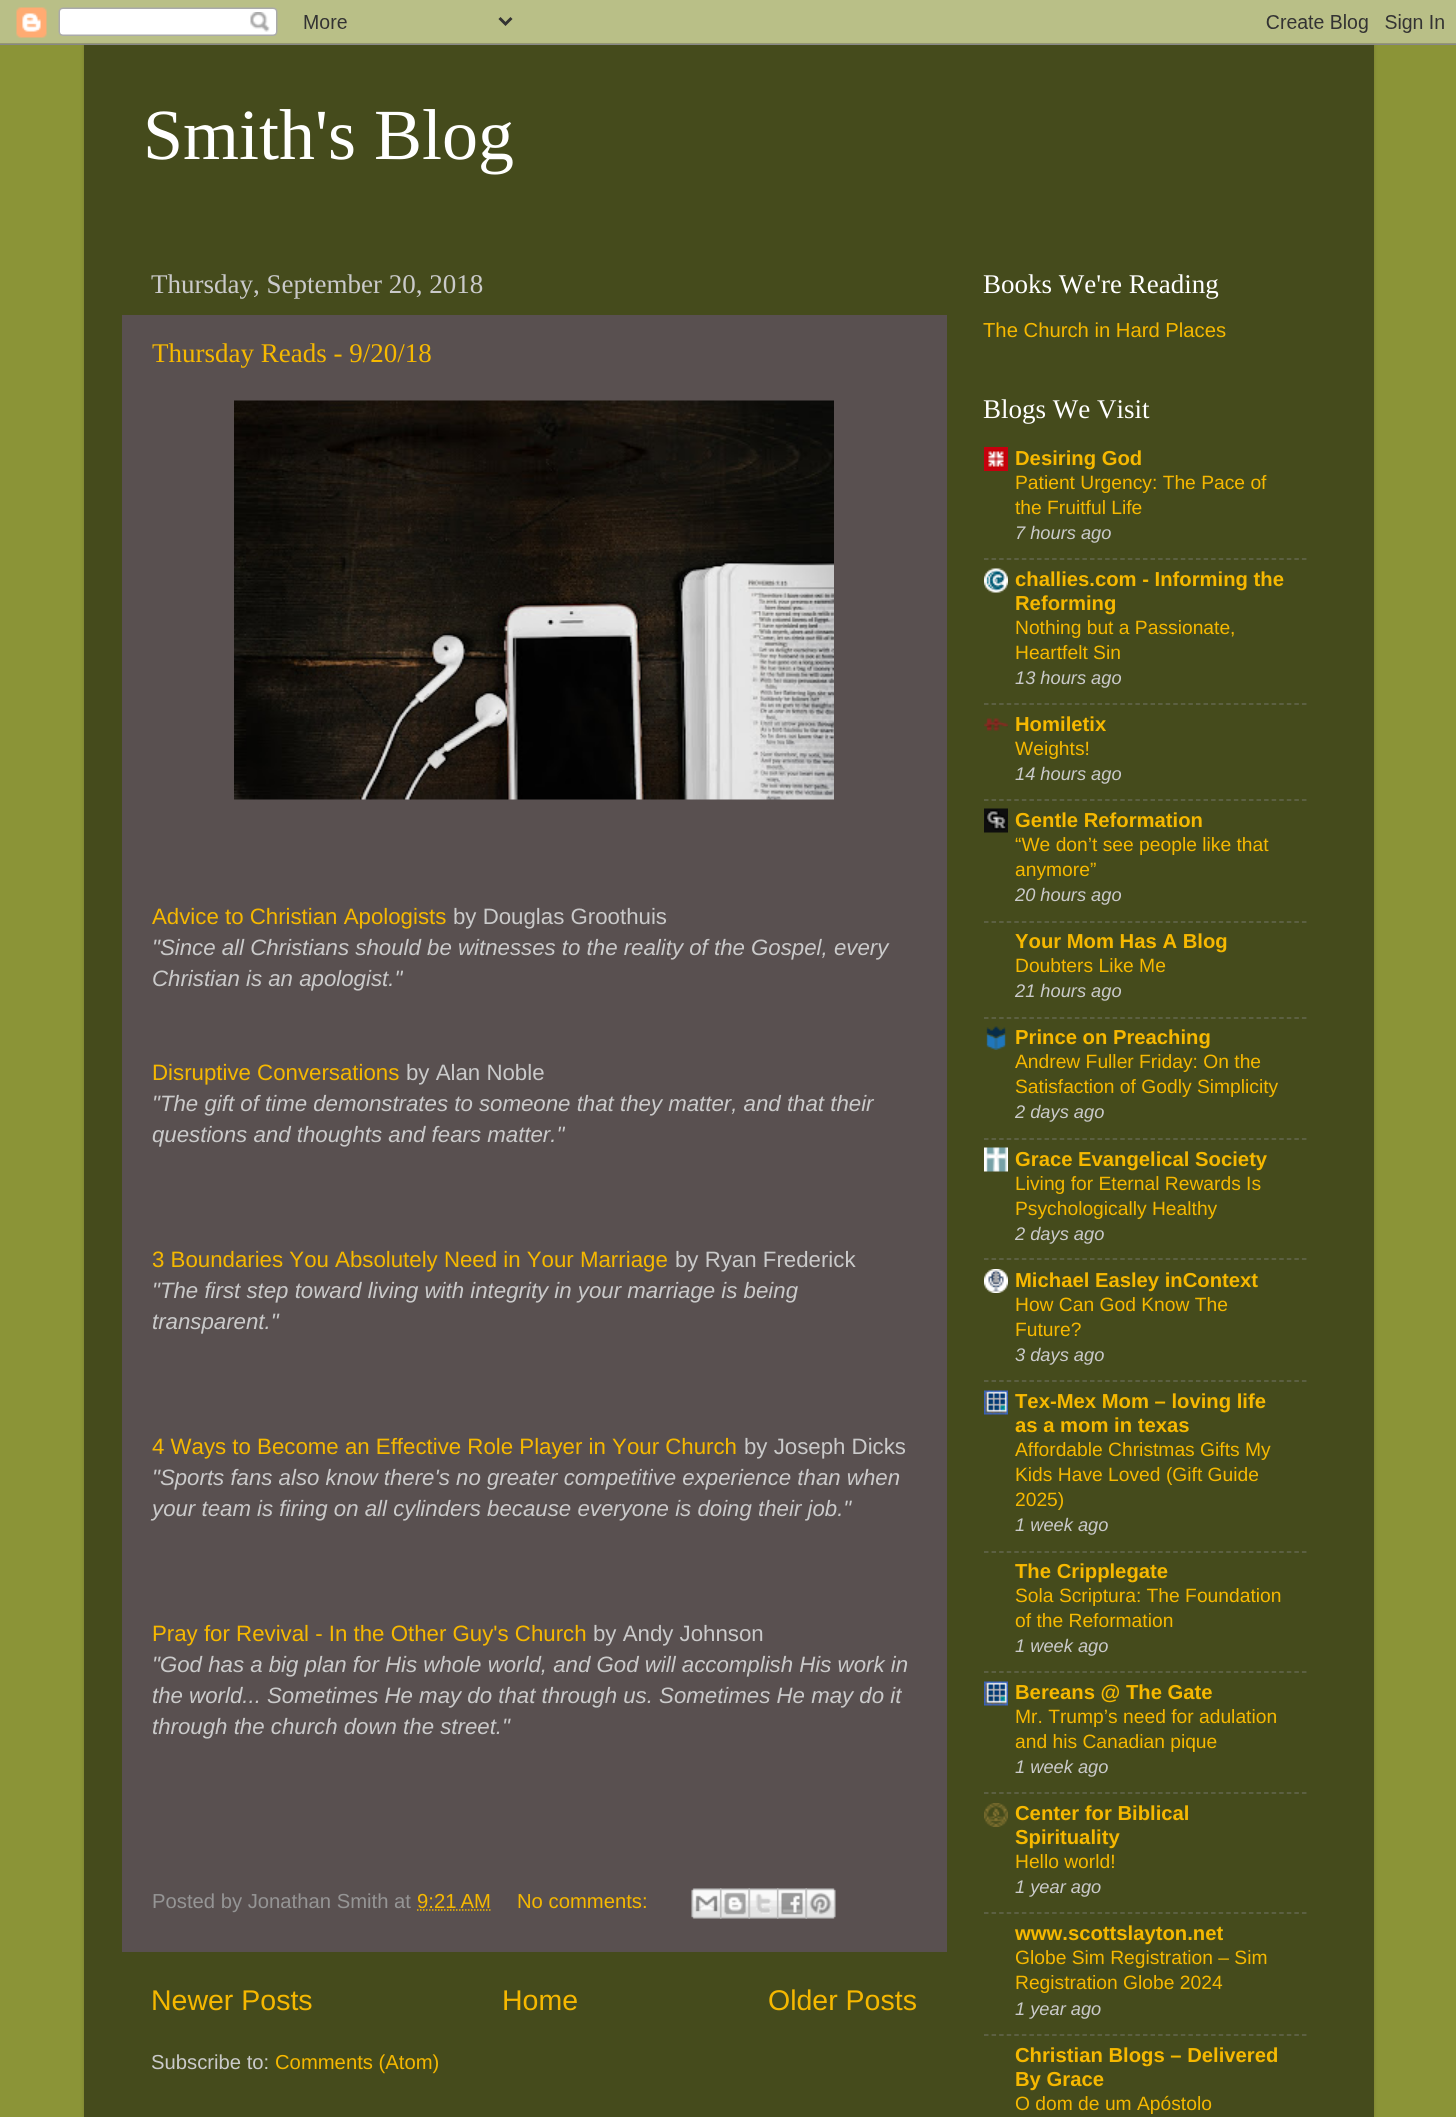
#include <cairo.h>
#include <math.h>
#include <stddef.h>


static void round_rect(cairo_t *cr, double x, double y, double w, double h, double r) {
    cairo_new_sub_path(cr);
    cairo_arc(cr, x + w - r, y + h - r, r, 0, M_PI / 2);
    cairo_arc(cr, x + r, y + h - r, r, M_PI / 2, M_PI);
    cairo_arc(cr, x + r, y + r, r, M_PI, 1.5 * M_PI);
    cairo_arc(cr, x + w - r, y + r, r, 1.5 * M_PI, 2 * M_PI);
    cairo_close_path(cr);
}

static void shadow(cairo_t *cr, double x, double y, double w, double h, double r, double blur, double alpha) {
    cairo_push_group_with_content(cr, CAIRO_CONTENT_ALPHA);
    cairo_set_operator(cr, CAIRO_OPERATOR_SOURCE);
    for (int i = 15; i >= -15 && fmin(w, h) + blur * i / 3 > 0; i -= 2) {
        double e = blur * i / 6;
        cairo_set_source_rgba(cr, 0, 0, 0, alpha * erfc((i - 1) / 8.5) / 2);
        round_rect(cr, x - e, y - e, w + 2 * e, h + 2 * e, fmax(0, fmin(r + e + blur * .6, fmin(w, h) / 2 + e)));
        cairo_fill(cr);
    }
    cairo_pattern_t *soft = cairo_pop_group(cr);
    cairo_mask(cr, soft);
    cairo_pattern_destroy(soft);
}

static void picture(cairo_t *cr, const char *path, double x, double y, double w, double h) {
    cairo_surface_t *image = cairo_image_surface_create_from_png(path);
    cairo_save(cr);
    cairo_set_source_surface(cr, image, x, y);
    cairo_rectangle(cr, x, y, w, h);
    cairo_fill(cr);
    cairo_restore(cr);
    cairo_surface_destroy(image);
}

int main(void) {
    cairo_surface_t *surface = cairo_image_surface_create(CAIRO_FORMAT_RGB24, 1456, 2117);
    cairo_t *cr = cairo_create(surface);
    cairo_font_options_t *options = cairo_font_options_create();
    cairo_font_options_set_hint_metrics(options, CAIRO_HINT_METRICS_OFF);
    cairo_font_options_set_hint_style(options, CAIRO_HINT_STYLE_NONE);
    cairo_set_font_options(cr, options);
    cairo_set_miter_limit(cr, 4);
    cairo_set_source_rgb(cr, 0.545, 0.58, 0.216);
    cairo_paint(cr);
    cairo_set_source_rgb(cr, 0, 0, 0);
    shadow(cr, 84, 45, 1290, 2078, 0, 2, 0.15);
    picture(cr, "img1.png", 0, 0, 1456, 45);
    cairo_set_source_rgb(cr, 0.271, 0.294, 0.11);
    cairo_rectangle(cr, 84, 45, 1290, 2072);
    cairo_fill(cr);
    cairo_select_font_face(cr, "Liberation Serif", CAIRO_FONT_SLANT_NORMAL, CAIRO_FONT_WEIGHT_NORMAL);
    cairo_set_font_size(cr, 72);
    cairo_set_source_rgb(cr, 1, 1, 1);
    cairo_move_to(cr, 143, 159);
    cairo_show_text(cr, "Smith's Blog");
    cairo_set_font_size(cr, 27);
    cairo_set_source_rgb(cr, 0.792, 0.792, 0.792);
    cairo_move_to(cr, 151, 293);
    cairo_show_text(cr, "Thursday, September 20, 2018");
    cairo_set_source_rgb(cr, 0.349, 0.314, 0.314);
    cairo_rectangle(cr, 122, 315, 825, 1637);
    cairo_fill(cr);
    cairo_set_source_rgb(cr, 0.961, 0.722, 0);
    cairo_move_to(cr, 152, 362);
    cairo_show_text(cr, "Thursday Reads - 9/20/18");
    picture(cr, "img2.png", 234, 400, 600, 400);
    cairo_select_font_face(cr, "Liberation Sans", CAIRO_FONT_SLANT_NORMAL, CAIRO_FONT_WEIGHT_NORMAL);
    cairo_set_font_size(cr, 22.25);
    cairo_move_to(cr, 152, 924);
    cairo_show_text(cr, "Advice to Christian Apologists");
    cairo_set_source_rgb(cr, 0.792, 0.792, 0.792);
    cairo_move_to(cr, 453, 924);
    cairo_show_text(cr, "by Douglas Groothuis");
    cairo_select_font_face(cr, "Liberation Sans", CAIRO_FONT_SLANT_ITALIC, CAIRO_FONT_WEIGHT_NORMAL);
    cairo_move_to(cr, 152, 955);
    cairo_show_text(cr, "\"Since all Christians should be witnesses to the reality of the Gospel, every");
    cairo_move_to(cr, 152, 986);
    cairo_show_text(cr, "Christian is an apologist.\"");
    cairo_select_font_face(cr, "Liberation Sans", CAIRO_FONT_SLANT_NORMAL, CAIRO_FONT_WEIGHT_NORMAL);
    cairo_set_source_rgb(cr, 0.961, 0.722, 0);
    cairo_move_to(cr, 152, 1080);
    cairo_show_text(cr, "Disruptive Conversations");
    cairo_set_source_rgb(cr, 0.792, 0.792, 0.792);
    cairo_move_to(cr, 406, 1080);
    cairo_show_text(cr, "by Alan Noble");
    cairo_select_font_face(cr, "Liberation Sans", CAIRO_FONT_SLANT_ITALIC, CAIRO_FONT_WEIGHT_NORMAL);
    cairo_move_to(cr, 152, 1111);
    cairo_show_text(cr, "\"The gift of time demonstrates to someone that they matter, and that their");
    cairo_move_to(cr, 152, 1142);
    cairo_show_text(cr, "questions and thoughts and fears matter.\"");
    cairo_select_font_face(cr, "Liberation Sans", CAIRO_FONT_SLANT_NORMAL, CAIRO_FONT_WEIGHT_NORMAL);
    cairo_set_source_rgb(cr, 0.961, 0.722, 0);
    cairo_move_to(cr, 152, 1267);
    cairo_show_text(cr, "3 Boundaries You Absolutely Need in Your Marriage");
    cairo_set_source_rgb(cr, 0.792, 0.792, 0.792);
    cairo_move_to(cr, 675, 1267);
    cairo_show_text(cr, "by Ryan Frederick");
    cairo_select_font_face(cr, "Liberation Sans", CAIRO_FONT_SLANT_ITALIC, CAIRO_FONT_WEIGHT_NORMAL);
    cairo_move_to(cr, 152, 1298);
    cairo_show_text(cr, "\"The first step toward living with integrity in your marriage is being");
    cairo_move_to(cr, 152, 1329);
    cairo_show_text(cr, "transparent.\"");
    cairo_select_font_face(cr, "Liberation Sans", CAIRO_FONT_SLANT_NORMAL, CAIRO_FONT_WEIGHT_NORMAL);
    cairo_set_source_rgb(cr, 0.961, 0.722, 0);
    cairo_move_to(cr, 152, 1454);
    cairo_show_text(cr, "4 Ways to Become an Effective Role Player in Your Church");
    cairo_set_source_rgb(cr, 0.792, 0.792, 0.792);
    cairo_move_to(cr, 744, 1454);
    cairo_show_text(cr, "by Joseph Dicks");
    cairo_select_font_face(cr, "Liberation Sans", CAIRO_FONT_SLANT_ITALIC, CAIRO_FONT_WEIGHT_NORMAL);
    cairo_move_to(cr, 152, 1485);
    cairo_show_text(cr, "\"Sports fans also know there's no greater competitive experience than when");
    cairo_move_to(cr, 152, 1516);
    cairo_show_text(cr, "your team is firing on all cylinders because everyone is doing their job.\"");
    cairo_select_font_face(cr, "Liberation Sans", CAIRO_FONT_SLANT_NORMAL, CAIRO_FONT_WEIGHT_NORMAL);
    cairo_set_source_rgb(cr, 0.961, 0.722, 0);
    cairo_move_to(cr, 152, 1641);
    cairo_show_text(cr, "Pray for Revival - In the Other Guy's Church");
    cairo_set_source_rgb(cr, 0.792, 0.792, 0.792);
    cairo_move_to(cr, 593, 1641);
    cairo_show_text(cr, "by Andy Johnson");
    cairo_select_font_face(cr, "Liberation Sans", CAIRO_FONT_SLANT_ITALIC, CAIRO_FONT_WEIGHT_NORMAL);
    cairo_move_to(cr, 152, 1672);
    cairo_show_text(cr, "\"God has a big plan for His whole world, and God will accomplish His work in");
    cairo_move_to(cr, 152, 1703);
    cairo_show_text(cr, "the world... Sometimes He may do that through us. Sometimes He may do it");
    cairo_move_to(cr, 152, 1734);
    cairo_show_text(cr, "through the church down the street.\"");
    cairo_select_font_face(cr, "Liberation Sans", CAIRO_FONT_SLANT_NORMAL, CAIRO_FONT_WEIGHT_NORMAL);
    cairo_set_font_size(cr, 20.25);
    cairo_set_source_rgb(cr, 0.584, 0.584, 0.584);
    cairo_move_to(cr, 152, 1908);
    cairo_show_text(cr, "Posted by Jonathan Smith at");
    cairo_set_source_rgb(cr, 0.961, 0.722, 0);
    cairo_move_to(cr, 417, 1908);
    cairo_show_text(cr, "9:21 AM");
    cairo_new_path(cr);
    cairo_move_to(cr, 417, 1910);
    cairo_line_to(cr, 490.5, 1910);
    cairo_set_line_width(cr, 1.5);
    cairo_set_dash(cr, (double[]){1.5, 1.5}, 2, 0);
    cairo_stroke(cr);
    cairo_move_to(cr, 517, 1908);
    cairo_show_text(cr, "No comments:");
    picture(cr, "img3.png", 691, 1888, 31, 31);
    picture(cr, "img4.png", 720, 1888, 30, 31);
    picture(cr, "img5.png", 748, 1888, 31, 31);
    picture(cr, "img6.png", 777, 1888, 30, 31);
    picture(cr, "img7.png", 805, 1888, 31, 31);
    cairo_set_font_size(cr, 28.5);
    cairo_move_to(cr, 151, 2010);
    cairo_show_text(cr, "Newer Posts");
    cairo_move_to(cr, 502, 2010);
    cairo_show_text(cr, "Home");
    cairo_move_to(cr, 768, 2010);
    cairo_show_text(cr, "Older Posts");
    cairo_set_font_size(cr, 20.25);
    cairo_set_source_rgb(cr, 0.792, 0.792, 0.792);
    cairo_move_to(cr, 151, 2069);
    cairo_show_text(cr, "Subscribe to:");
    cairo_set_source_rgb(cr, 0.961, 0.722, 0);
    cairo_move_to(cr, 275, 2069);
    cairo_show_text(cr, "Comments (Atom)");
    cairo_select_font_face(cr, "Liberation Serif", CAIRO_FONT_SLANT_NORMAL, CAIRO_FONT_WEIGHT_NORMAL);
    cairo_set_font_size(cr, 27);
    cairo_set_source_rgb(cr, 1, 1, 1);
    cairo_move_to(cr, 983, 293);
    cairo_show_text(cr, "Books We're Reading");
    cairo_select_font_face(cr, "Liberation Sans", CAIRO_FONT_SLANT_NORMAL, CAIRO_FONT_WEIGHT_NORMAL);
    cairo_set_font_size(cr, 20.25);
    cairo_set_source_rgb(cr, 0.961, 0.722, 0);
    cairo_move_to(cr, 983, 337);
    cairo_show_text(cr, "The Church in Hard Places");
    cairo_select_font_face(cr, "Liberation Serif", CAIRO_FONT_SLANT_NORMAL, CAIRO_FONT_WEIGHT_NORMAL);
    cairo_set_font_size(cr, 27);
    cairo_set_source_rgb(cr, 1, 1, 1);
    cairo_move_to(cr, 983, 418);
    cairo_show_text(cr, "Blogs We Visit");
    picture(cr, "img8.png", 984, 447, 24, 24);
    cairo_select_font_face(cr, "Liberation Sans", CAIRO_FONT_SLANT_NORMAL, CAIRO_FONT_WEIGHT_BOLD);
    cairo_set_font_size(cr, 20.25);
    cairo_set_source_rgb(cr, 0.961, 0.722, 0);
    cairo_move_to(cr, 1015, 465);
    cairo_show_text(cr, "Desiring God");
    cairo_select_font_face(cr, "Liberation Sans", CAIRO_FONT_SLANT_NORMAL, CAIRO_FONT_WEIGHT_NORMAL);
    cairo_set_font_size(cr, 19.25);
    cairo_move_to(cr, 1015, 489);
    cairo_show_text(cr, "Patient Urgency: The Pace of");
    cairo_move_to(cr, 1015, 514);
    cairo_show_text(cr, "the Fruitful Life");
    cairo_select_font_face(cr, "Liberation Sans", CAIRO_FONT_SLANT_ITALIC, CAIRO_FONT_WEIGHT_NORMAL);
    cairo_set_font_size(cr, 18.25);
    cairo_set_source_rgb(cr, 0.792, 0.792, 0.792);
    cairo_move_to(cr, 1015, 539);
    cairo_show_text(cr, "7 hours ago");
    cairo_new_path(cr);
    cairo_move_to(cr, 984, 559);
    cairo_line_to(cr, 1306.5, 559);
    cairo_set_source_rgb(cr, 0.388, 0.4, 0.306);
    cairo_set_dash(cr, (double[]){4.5, 3.07}, 2, 0);
    cairo_stroke(cr);
    picture(cr, "img9.png", 984, 568, 24, 25);
    cairo_select_font_face(cr, "Liberation Sans", CAIRO_FONT_SLANT_NORMAL, CAIRO_FONT_WEIGHT_BOLD);
    cairo_set_font_size(cr, 20.25);
    cairo_set_source_rgb(cr, 0.961, 0.722, 0);
    cairo_move_to(cr, 1015, 586);
    cairo_show_text(cr, "challies.com - Informing the");
    cairo_move_to(cr, 1015, 610);
    cairo_show_text(cr, "Reforming");
    cairo_select_font_face(cr, "Liberation Sans", CAIRO_FONT_SLANT_NORMAL, CAIRO_FONT_WEIGHT_NORMAL);
    cairo_set_font_size(cr, 19.25);
    cairo_move_to(cr, 1015, 634);
    cairo_show_text(cr, "Nothing but a Passionate,");
    cairo_move_to(cr, 1015, 659);
    cairo_show_text(cr, "Heartfelt Sin");
    cairo_select_font_face(cr, "Liberation Sans", CAIRO_FONT_SLANT_ITALIC, CAIRO_FONT_WEIGHT_NORMAL);
    cairo_set_font_size(cr, 18.25);
    cairo_set_source_rgb(cr, 0.792, 0.792, 0.792);
    cairo_move_to(cr, 1015, 684);
    cairo_show_text(cr, "13 hours ago");
    cairo_new_path(cr);
    cairo_move_to(cr, 984, 704);
    cairo_line_to(cr, 1306.5, 704);
    cairo_set_source_rgb(cr, 0.388, 0.4, 0.306);
    cairo_stroke(cr);
    picture(cr, "img10.png", 984, 718, 24, 13);
    cairo_select_font_face(cr, "Liberation Sans", CAIRO_FONT_SLANT_NORMAL, CAIRO_FONT_WEIGHT_BOLD);
    cairo_set_font_size(cr, 20.25);
    cairo_set_source_rgb(cr, 0.961, 0.722, 0);
    cairo_move_to(cr, 1015, 731);
    cairo_show_text(cr, "Homiletix");
    cairo_select_font_face(cr, "Liberation Sans", CAIRO_FONT_SLANT_NORMAL, CAIRO_FONT_WEIGHT_NORMAL);
    cairo_set_font_size(cr, 19.25);
    cairo_move_to(cr, 1015, 755);
    cairo_show_text(cr, "Weights!");
    cairo_select_font_face(cr, "Liberation Sans", CAIRO_FONT_SLANT_ITALIC, CAIRO_FONT_WEIGHT_NORMAL);
    cairo_set_font_size(cr, 18.25);
    cairo_set_source_rgb(cr, 0.792, 0.792, 0.792);
    cairo_move_to(cr, 1015, 780);
    cairo_show_text(cr, "14 hours ago");
    cairo_new_path(cr);
    cairo_move_to(cr, 984, 800);
    cairo_line_to(cr, 1306.5, 800);
    cairo_set_source_rgb(cr, 0.388, 0.4, 0.306);
    cairo_stroke(cr);
    picture(cr, "img11.png", 984, 808, 24, 25);
    cairo_select_font_face(cr, "Liberation Sans", CAIRO_FONT_SLANT_NORMAL, CAIRO_FONT_WEIGHT_BOLD);
    cairo_set_font_size(cr, 20.25);
    cairo_set_source_rgb(cr, 0.961, 0.722, 0);
    cairo_move_to(cr, 1015, 827);
    cairo_show_text(cr, "Gentle Reformation");
    cairo_select_font_face(cr, "Liberation Sans", CAIRO_FONT_SLANT_NORMAL, CAIRO_FONT_WEIGHT_NORMAL);
    cairo_set_font_size(cr, 19.25);
    cairo_move_to(cr, 1015, 851);
    cairo_show_text(cr, "“We don’t see people like that");
    cairo_move_to(cr, 1015, 876);
    cairo_show_text(cr, "anymore”");
    cairo_select_font_face(cr, "Liberation Sans", CAIRO_FONT_SLANT_ITALIC, CAIRO_FONT_WEIGHT_NORMAL);
    cairo_set_font_size(cr, 18.25);
    cairo_set_source_rgb(cr, 0.792, 0.792, 0.792);
    cairo_move_to(cr, 1015, 901);
    cairo_show_text(cr, "20 hours ago");
    cairo_new_path(cr);
    cairo_move_to(cr, 984, 922);
    cairo_line_to(cr, 1306.5, 922);
    cairo_set_source_rgb(cr, 0.388, 0.4, 0.306);
    cairo_stroke(cr);
    cairo_select_font_face(cr, "Liberation Sans", CAIRO_FONT_SLANT_NORMAL, CAIRO_FONT_WEIGHT_BOLD);
    cairo_set_font_size(cr, 20.25);
    cairo_set_source_rgb(cr, 0.961, 0.722, 0);
    cairo_move_to(cr, 1015, 948);
    cairo_show_text(cr, "Your Mom Has A Blog");
    cairo_select_font_face(cr, "Liberation Sans", CAIRO_FONT_SLANT_NORMAL, CAIRO_FONT_WEIGHT_NORMAL);
    cairo_set_font_size(cr, 19.25);
    cairo_move_to(cr, 1015, 972);
    cairo_show_text(cr, "Doubters Like Me");
    cairo_select_font_face(cr, "Liberation Sans", CAIRO_FONT_SLANT_ITALIC, CAIRO_FONT_WEIGHT_NORMAL);
    cairo_set_font_size(cr, 18.25);
    cairo_set_source_rgb(cr, 0.792, 0.792, 0.792);
    cairo_move_to(cr, 1015, 997);
    cairo_show_text(cr, "21 hours ago");
    cairo_new_path(cr);
    cairo_move_to(cr, 984, 1018);
    cairo_line_to(cr, 1306.5, 1018);
    cairo_set_source_rgb(cr, 0.388, 0.4, 0.306);
    cairo_stroke(cr);
    picture(cr, "img12.png", 986, 1026, 20, 24);
    cairo_select_font_face(cr, "Liberation Sans", CAIRO_FONT_SLANT_NORMAL, CAIRO_FONT_WEIGHT_BOLD);
    cairo_set_font_size(cr, 20.25);
    cairo_set_source_rgb(cr, 0.961, 0.722, 0);
    cairo_move_to(cr, 1015, 1044);
    cairo_show_text(cr, "Prince on Preaching");
    cairo_select_font_face(cr, "Liberation Sans", CAIRO_FONT_SLANT_NORMAL, CAIRO_FONT_WEIGHT_NORMAL);
    cairo_set_font_size(cr, 19.25);
    cairo_move_to(cr, 1015, 1068);
    cairo_show_text(cr, "Andrew Fuller Friday: On the");
    cairo_move_to(cr, 1015, 1093);
    cairo_show_text(cr, "Satisfaction of Godly Simplicity");
    cairo_select_font_face(cr, "Liberation Sans", CAIRO_FONT_SLANT_ITALIC, CAIRO_FONT_WEIGHT_NORMAL);
    cairo_set_font_size(cr, 18.25);
    cairo_set_source_rgb(cr, 0.792, 0.792, 0.792);
    cairo_move_to(cr, 1015, 1118);
    cairo_show_text(cr, "2 days ago");
    cairo_new_path(cr);
    cairo_move_to(cr, 984, 1139);
    cairo_line_to(cr, 1306.5, 1139);
    cairo_set_source_rgb(cr, 0.388, 0.4, 0.306);
    cairo_stroke(cr);
    picture(cr, "img13.png", 984, 1147, 24, 25);
    cairo_select_font_face(cr, "Liberation Sans", CAIRO_FONT_SLANT_NORMAL, CAIRO_FONT_WEIGHT_BOLD);
    cairo_set_font_size(cr, 20.25);
    cairo_set_source_rgb(cr, 0.961, 0.722, 0);
    cairo_move_to(cr, 1015, 1166);
    cairo_show_text(cr, "Grace Evangelical Society");
    cairo_select_font_face(cr, "Liberation Sans", CAIRO_FONT_SLANT_NORMAL, CAIRO_FONT_WEIGHT_NORMAL);
    cairo_set_font_size(cr, 19.25);
    cairo_move_to(cr, 1015, 1190);
    cairo_show_text(cr, "Living for Eternal Rewards Is");
    cairo_move_to(cr, 1015, 1215);
    cairo_show_text(cr, "Psychologically Healthy");
    cairo_select_font_face(cr, "Liberation Sans", CAIRO_FONT_SLANT_ITALIC, CAIRO_FONT_WEIGHT_NORMAL);
    cairo_set_font_size(cr, 18.25);
    cairo_set_source_rgb(cr, 0.792, 0.792, 0.792);
    cairo_move_to(cr, 1015, 1240);
    cairo_show_text(cr, "2 days ago");
    cairo_new_path(cr);
    cairo_move_to(cr, 984, 1259);
    cairo_line_to(cr, 1306.5, 1259);
    cairo_set_source_rgb(cr, 0.388, 0.4, 0.306);
    cairo_stroke(cr);
    picture(cr, "img14.png", 984, 1269, 24, 24);
    cairo_select_font_face(cr, "Liberation Sans", CAIRO_FONT_SLANT_NORMAL, CAIRO_FONT_WEIGHT_BOLD);
    cairo_set_font_size(cr, 20.25);
    cairo_set_source_rgb(cr, 0.961, 0.722, 0);
    cairo_move_to(cr, 1015, 1287);
    cairo_show_text(cr, "Michael Easley inContext");
    cairo_select_font_face(cr, "Liberation Sans", CAIRO_FONT_SLANT_NORMAL, CAIRO_FONT_WEIGHT_NORMAL);
    cairo_set_font_size(cr, 19.25);
    cairo_move_to(cr, 1015, 1311);
    cairo_show_text(cr, "How Can God Know The");
    cairo_move_to(cr, 1015, 1336);
    cairo_show_text(cr, "Future?");
    cairo_select_font_face(cr, "Liberation Sans", CAIRO_FONT_SLANT_ITALIC, CAIRO_FONT_WEIGHT_NORMAL);
    cairo_set_font_size(cr, 18.25);
    cairo_set_source_rgb(cr, 0.792, 0.792, 0.792);
    cairo_move_to(cr, 1015, 1361);
    cairo_show_text(cr, "3 days ago");
    cairo_new_path(cr);
    cairo_move_to(cr, 984, 1381);
    cairo_line_to(cr, 1306.5, 1381);
    cairo_set_source_rgb(cr, 0.388, 0.4, 0.306);
    cairo_stroke(cr);
    picture(cr, "img15.png", 984, 1390, 24, 25);
    cairo_select_font_face(cr, "Liberation Sans", CAIRO_FONT_SLANT_NORMAL, CAIRO_FONT_WEIGHT_BOLD);
    cairo_set_font_size(cr, 20.25);
    cairo_set_source_rgb(cr, 0.961, 0.722, 0);
    cairo_move_to(cr, 1015, 1408);
    cairo_show_text(cr, "Tex-Mex Mom – loving life");
    cairo_move_to(cr, 1015, 1432);
    cairo_show_text(cr, "as a mom in texas");
    cairo_select_font_face(cr, "Liberation Sans", CAIRO_FONT_SLANT_NORMAL, CAIRO_FONT_WEIGHT_NORMAL);
    cairo_set_font_size(cr, 19.25);
    cairo_move_to(cr, 1015, 1456);
    cairo_show_text(cr, "Affordable Christmas Gifts My");
    cairo_move_to(cr, 1015, 1481);
    cairo_show_text(cr, "Kids Have Loved (Gift Guide");
    cairo_move_to(cr, 1015, 1506);
    cairo_show_text(cr, "2025)");
    cairo_select_font_face(cr, "Liberation Sans", CAIRO_FONT_SLANT_ITALIC, CAIRO_FONT_WEIGHT_NORMAL);
    cairo_set_font_size(cr, 18.25);
    cairo_set_source_rgb(cr, 0.792, 0.792, 0.792);
    cairo_move_to(cr, 1015, 1531);
    cairo_show_text(cr, "1 week ago");
    cairo_new_path(cr);
    cairo_move_to(cr, 984, 1552);
    cairo_line_to(cr, 1306.5, 1552);
    cairo_set_source_rgb(cr, 0.388, 0.4, 0.306);
    cairo_stroke(cr);
    cairo_select_font_face(cr, "Liberation Sans", CAIRO_FONT_SLANT_NORMAL, CAIRO_FONT_WEIGHT_BOLD);
    cairo_set_font_size(cr, 20.25);
    cairo_set_source_rgb(cr, 0.961, 0.722, 0);
    cairo_move_to(cr, 1015, 1578);
    cairo_show_text(cr, "The Cripplegate");
    cairo_select_font_face(cr, "Liberation Sans", CAIRO_FONT_SLANT_NORMAL, CAIRO_FONT_WEIGHT_NORMAL);
    cairo_set_font_size(cr, 19.25);
    cairo_move_to(cr, 1015, 1602);
    cairo_show_text(cr, "Sola Scriptura: The Foundation");
    cairo_move_to(cr, 1015, 1627);
    cairo_show_text(cr, "of the Reformation");
    cairo_select_font_face(cr, "Liberation Sans", CAIRO_FONT_SLANT_ITALIC, CAIRO_FONT_WEIGHT_NORMAL);
    cairo_set_font_size(cr, 18.25);
    cairo_set_source_rgb(cr, 0.792, 0.792, 0.792);
    cairo_move_to(cr, 1015, 1652);
    cairo_show_text(cr, "1 week ago");
    cairo_new_path(cr);
    cairo_move_to(cr, 984, 1672);
    cairo_line_to(cr, 1306.5, 1672);
    cairo_set_source_rgb(cr, 0.388, 0.4, 0.306);
    cairo_stroke(cr);
    picture(cr, "img15.png", 984, 1681, 24, 25);
    cairo_select_font_face(cr, "Liberation Sans", CAIRO_FONT_SLANT_NORMAL, CAIRO_FONT_WEIGHT_BOLD);
    cairo_set_font_size(cr, 20.25);
    cairo_set_source_rgb(cr, 0.961, 0.722, 0);
    cairo_move_to(cr, 1015, 1699);
    cairo_show_text(cr, "Bereans @ The Gate");
    cairo_select_font_face(cr, "Liberation Sans", CAIRO_FONT_SLANT_NORMAL, CAIRO_FONT_WEIGHT_NORMAL);
    cairo_set_font_size(cr, 19.25);
    cairo_move_to(cr, 1015, 1723);
    cairo_show_text(cr, "Mr. Trump’s need for adulation");
    cairo_move_to(cr, 1015, 1748);
    cairo_show_text(cr, "and his Canadian pique");
    cairo_select_font_face(cr, "Liberation Sans", CAIRO_FONT_SLANT_ITALIC, CAIRO_FONT_WEIGHT_NORMAL);
    cairo_set_font_size(cr, 18.25);
    cairo_set_source_rgb(cr, 0.792, 0.792, 0.792);
    cairo_move_to(cr, 1015, 1773);
    cairo_show_text(cr, "1 week ago");
    cairo_new_path(cr);
    cairo_move_to(cr, 984, 1793);
    cairo_line_to(cr, 1306.5, 1793);
    cairo_set_source_rgb(cr, 0.388, 0.4, 0.306);
    cairo_stroke(cr);
    picture(cr, "img16.png", 984, 1803, 24, 24);
    cairo_select_font_face(cr, "Liberation Sans", CAIRO_FONT_SLANT_NORMAL, CAIRO_FONT_WEIGHT_BOLD);
    cairo_set_font_size(cr, 20.25);
    cairo_set_source_rgb(cr, 0.961, 0.722, 0);
    cairo_move_to(cr, 1015, 1820);
    cairo_show_text(cr, "Center for Biblical");
    cairo_move_to(cr, 1015, 1844);
    cairo_show_text(cr, "Spirituality");
    cairo_select_font_face(cr, "Liberation Sans", CAIRO_FONT_SLANT_NORMAL, CAIRO_FONT_WEIGHT_NORMAL);
    cairo_set_font_size(cr, 19.25);
    cairo_move_to(cr, 1015, 1868);
    cairo_show_text(cr, "Hello world!");
    cairo_select_font_face(cr, "Liberation Sans", CAIRO_FONT_SLANT_ITALIC, CAIRO_FONT_WEIGHT_NORMAL);
    cairo_set_font_size(cr, 18.25);
    cairo_set_source_rgb(cr, 0.792, 0.792, 0.792);
    cairo_move_to(cr, 1015, 1893);
    cairo_show_text(cr, "1 year ago");
    cairo_new_path(cr);
    cairo_move_to(cr, 984, 1913);
    cairo_line_to(cr, 1306.5, 1913);
    cairo_set_source_rgb(cr, 0.388, 0.4, 0.306);
    cairo_stroke(cr);
    cairo_select_font_face(cr, "Liberation Sans", CAIRO_FONT_SLANT_NORMAL, CAIRO_FONT_WEIGHT_BOLD);
    cairo_set_font_size(cr, 20.25);
    cairo_set_source_rgb(cr, 0.961, 0.722, 0);
    cairo_move_to(cr, 1015, 1940);
    cairo_show_text(cr, "www.scottslayton.net");
    cairo_select_font_face(cr, "Liberation Sans", CAIRO_FONT_SLANT_NORMAL, CAIRO_FONT_WEIGHT_NORMAL);
    cairo_set_font_size(cr, 19.25);
    cairo_move_to(cr, 1015, 1964);
    cairo_show_text(cr, "Globe Sim Registration – Sim");
    cairo_move_to(cr, 1015, 1989);
    cairo_show_text(cr, "Registration Globe 2024");
    cairo_select_font_face(cr, "Liberation Sans", CAIRO_FONT_SLANT_ITALIC, CAIRO_FONT_WEIGHT_NORMAL);
    cairo_set_font_size(cr, 18.25);
    cairo_set_source_rgb(cr, 0.792, 0.792, 0.792);
    cairo_move_to(cr, 1015, 2015);
    cairo_show_text(cr, "1 year ago");
    cairo_new_path(cr);
    cairo_move_to(cr, 984, 2035);
    cairo_line_to(cr, 1306.5, 2035);
    cairo_set_source_rgb(cr, 0.388, 0.4, 0.306);
    cairo_stroke(cr);
    cairo_select_font_face(cr, "Liberation Sans", CAIRO_FONT_SLANT_NORMAL, CAIRO_FONT_WEIGHT_BOLD);
    cairo_set_font_size(cr, 20.25);
    cairo_set_source_rgb(cr, 0.961, 0.722, 0);
    cairo_move_to(cr, 1015, 2062);
    cairo_show_text(cr, "Christian Blogs – Delivered");
    cairo_move_to(cr, 1015, 2086);
    cairo_show_text(cr, "By Grace");
    cairo_select_font_face(cr, "Liberation Sans", CAIRO_FONT_SLANT_NORMAL, CAIRO_FONT_WEIGHT_NORMAL);
    cairo_set_font_size(cr, 19.25);
    cairo_move_to(cr, 1015, 2110);
    cairo_show_text(cr, "O dom de um Apóstolo");
    cairo_surface_write_to_png(surface, "page.png");
    cairo_font_options_destroy(options);
    cairo_destroy(cr);
    cairo_surface_destroy(surface);
    return 0;
}
